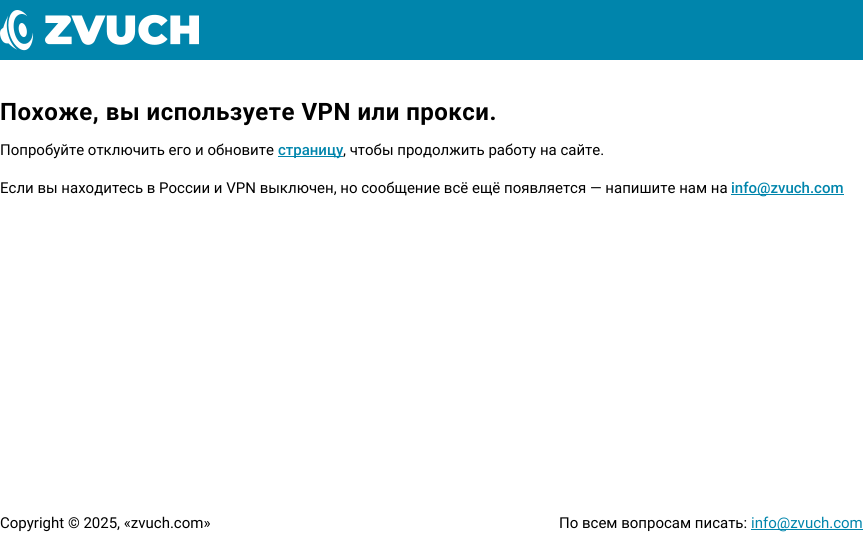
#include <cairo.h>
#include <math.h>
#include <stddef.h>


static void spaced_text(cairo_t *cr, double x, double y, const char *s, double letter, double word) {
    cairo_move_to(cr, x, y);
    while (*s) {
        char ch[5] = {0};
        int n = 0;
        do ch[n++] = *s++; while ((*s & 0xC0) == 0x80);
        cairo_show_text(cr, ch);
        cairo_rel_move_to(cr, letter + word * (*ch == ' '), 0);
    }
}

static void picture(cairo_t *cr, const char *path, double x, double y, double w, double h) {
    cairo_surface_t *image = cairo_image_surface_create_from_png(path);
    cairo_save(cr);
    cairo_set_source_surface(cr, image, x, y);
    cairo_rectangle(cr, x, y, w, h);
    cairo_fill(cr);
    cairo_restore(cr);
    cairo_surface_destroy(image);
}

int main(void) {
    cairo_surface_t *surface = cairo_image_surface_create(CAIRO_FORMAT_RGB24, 863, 560);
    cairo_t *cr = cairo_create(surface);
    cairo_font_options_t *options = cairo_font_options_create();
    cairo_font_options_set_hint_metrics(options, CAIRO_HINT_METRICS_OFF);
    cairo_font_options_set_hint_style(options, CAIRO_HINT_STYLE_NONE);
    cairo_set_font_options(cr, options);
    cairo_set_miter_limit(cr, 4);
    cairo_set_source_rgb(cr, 1, 1, 1);
    cairo_paint(cr);
    cairo_set_source_rgb(cr, 0, 0.522, 0.675);
    cairo_rectangle(cr, 0, 0, 863, 60);
    cairo_fill(cr);
    picture(cr, "img1.png", 0, 10, 199, 41);
    cairo_select_font_face(cr, "Roboto", CAIRO_FONT_SLANT_NORMAL, CAIRO_FONT_WEIGHT_BOLD);
    cairo_set_font_size(cr, 24);
    cairo_set_source_rgb(cr, 0, 0, 0);
    spaced_text(cr, 0, 120, "Похоже, вы используете VPN или прокси.", 0.5, 0);
    cairo_select_font_face(cr, "Roboto", CAIRO_FONT_SLANT_NORMAL, CAIRO_FONT_WEIGHT_NORMAL);
    cairo_set_font_size(cr, 15);
    cairo_move_to(cr, 0, 155);
    cairo_show_text(cr, "Попробуйте отключить его и обновите");
    cairo_set_source_rgb(cr, 0, 0.522, 0.675);
    cairo_rectangle(cr, 278, 156, 65, 1);
    cairo_fill(cr);
    cairo_select_font_face(cr, "Roboto Medium", CAIRO_FONT_SLANT_NORMAL, CAIRO_FONT_WEIGHT_NORMAL);
    cairo_move_to(cr, 278, 155);
    cairo_show_text(cr, "страницу");
    cairo_select_font_face(cr, "Roboto", CAIRO_FONT_SLANT_NORMAL, CAIRO_FONT_WEIGHT_NORMAL);
    cairo_set_source_rgb(cr, 0, 0, 0);
    cairo_move_to(cr, 343, 155);
    cairo_show_text(cr, ", чтобы продолжить работу на сайте.");
    cairo_move_to(cr, 0, 193);
    cairo_show_text(cr, "Если вы находитесь в России и VPN выключен, но сообщение всё ещё появляется — напишите нам на");
    cairo_set_source_rgb(cr, 0, 0.522, 0.675);
    cairo_rectangle(cr, 731, 194, 113, 1);
    cairo_fill(cr);
    cairo_select_font_face(cr, "Roboto Medium", CAIRO_FONT_SLANT_NORMAL, CAIRO_FONT_WEIGHT_NORMAL);
    cairo_move_to(cr, 731, 193);
    cairo_show_text(cr, "info@zvuch.com");
    cairo_select_font_face(cr, "Roboto", CAIRO_FONT_SLANT_NORMAL, CAIRO_FONT_WEIGHT_NORMAL);
    cairo_set_source_rgb(cr, 0, 0, 0);
    cairo_move_to(cr, 0, 528);
    cairo_show_text(cr, "Copyright © 2025, «zvuch.com»");
    cairo_move_to(cr, 559, 528);
    cairo_show_text(cr, "По всем вопросам писать:");
    cairo_set_source_rgb(cr, 0, 0.522, 0.675);
    cairo_rectangle(cr, 751, 529, 112, 1);
    cairo_fill(cr);
    cairo_move_to(cr, 751, 528);
    cairo_show_text(cr, "info@zvuch.com");
    cairo_surface_write_to_png(surface, "page.png");
    cairo_font_options_destroy(options);
    cairo_destroy(cr);
    cairo_surface_destroy(surface);
    return 0;
}
